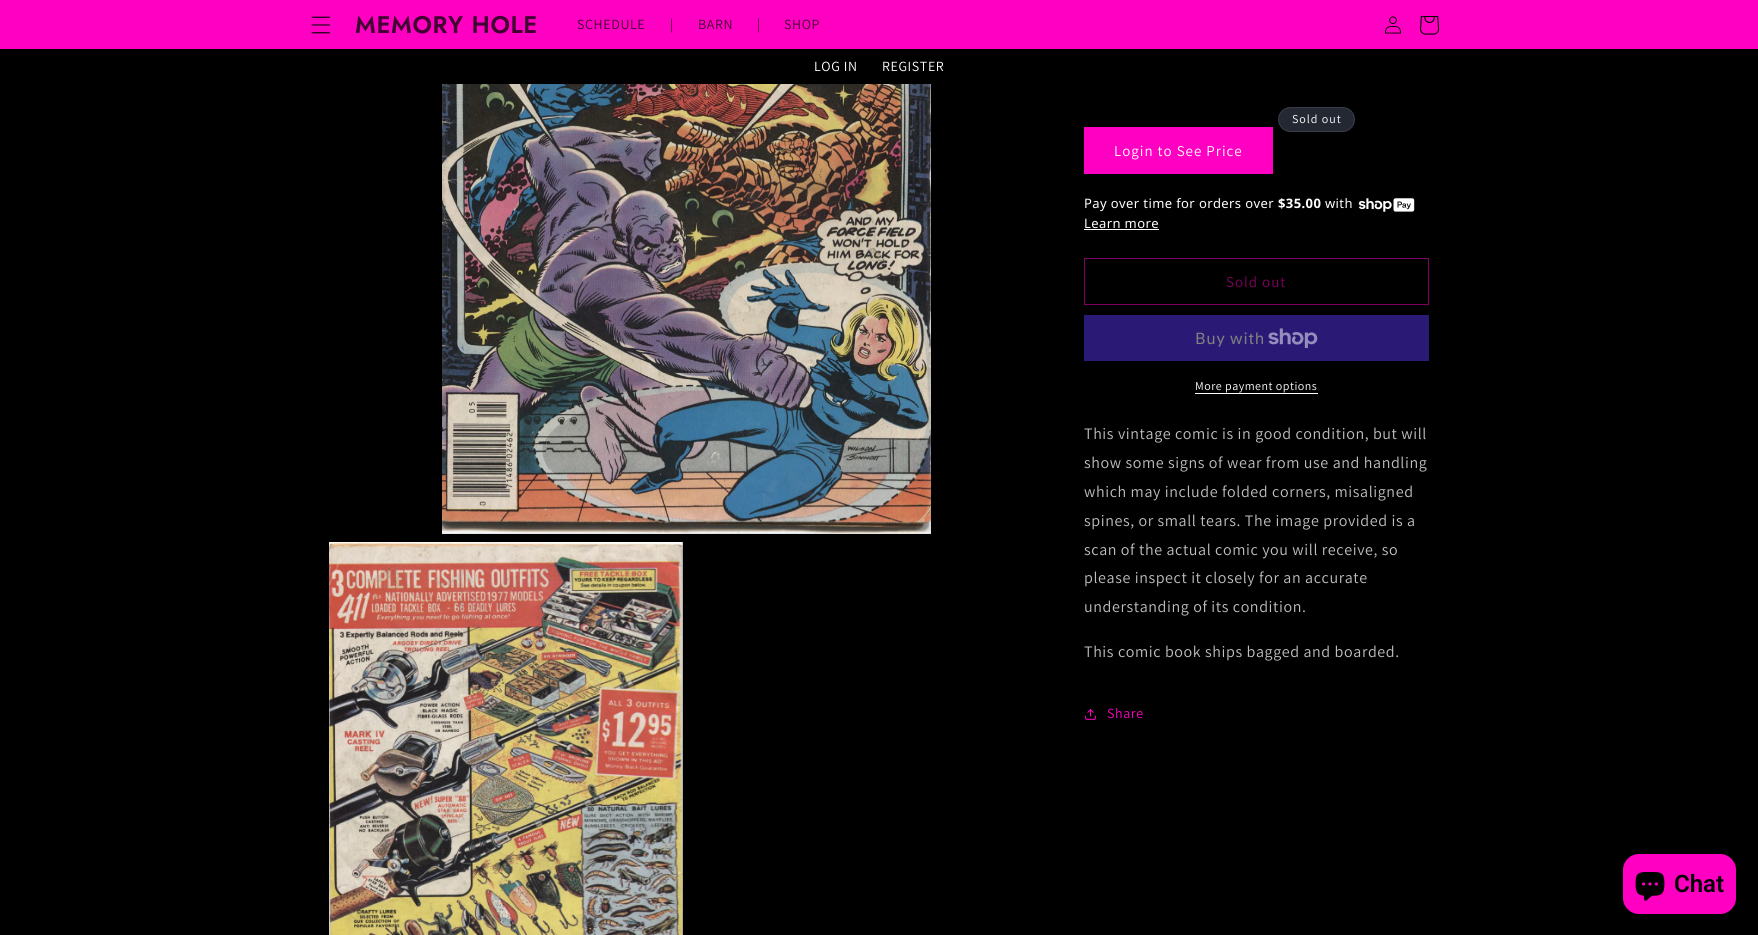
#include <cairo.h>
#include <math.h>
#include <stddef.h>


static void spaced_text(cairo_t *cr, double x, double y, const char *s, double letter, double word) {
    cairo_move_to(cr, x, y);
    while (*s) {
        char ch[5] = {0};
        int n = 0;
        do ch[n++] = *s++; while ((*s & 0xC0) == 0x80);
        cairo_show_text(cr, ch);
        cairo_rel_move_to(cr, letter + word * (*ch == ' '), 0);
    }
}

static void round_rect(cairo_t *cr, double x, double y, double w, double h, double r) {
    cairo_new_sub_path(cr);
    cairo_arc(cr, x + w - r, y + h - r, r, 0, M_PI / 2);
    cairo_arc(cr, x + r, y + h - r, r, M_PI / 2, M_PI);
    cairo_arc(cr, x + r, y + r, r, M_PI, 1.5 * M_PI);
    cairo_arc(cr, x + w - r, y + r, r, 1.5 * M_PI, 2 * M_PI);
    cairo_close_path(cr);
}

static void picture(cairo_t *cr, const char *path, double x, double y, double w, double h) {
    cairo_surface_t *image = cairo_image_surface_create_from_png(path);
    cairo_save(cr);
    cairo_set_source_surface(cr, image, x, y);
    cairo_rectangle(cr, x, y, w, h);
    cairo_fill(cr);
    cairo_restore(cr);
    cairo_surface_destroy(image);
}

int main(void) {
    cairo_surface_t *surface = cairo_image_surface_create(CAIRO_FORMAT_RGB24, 1758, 935);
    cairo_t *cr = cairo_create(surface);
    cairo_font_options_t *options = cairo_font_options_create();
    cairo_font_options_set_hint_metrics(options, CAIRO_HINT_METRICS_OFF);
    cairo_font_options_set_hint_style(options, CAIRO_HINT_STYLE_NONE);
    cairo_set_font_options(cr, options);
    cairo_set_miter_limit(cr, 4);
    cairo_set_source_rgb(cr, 0, 0, 0);
    cairo_paint(cr);
    cairo_set_source_rgb(cr, 1, 0, 0.761);
    cairo_rectangle(cr, 0, 0, 1758, 49);
    cairo_fill(cr);
    picture(cr, "img1.png", 311, 16, 20, 18);
    cairo_select_font_face(cr, "Jost SemiBold", CAIRO_FONT_SLANT_NORMAL, CAIRO_FONT_WEIGHT_NORMAL);
    cairo_set_font_size(cr, 24);
    cairo_set_source_rgb(cr, 0.251, 0, 0.192);
    spaced_text(cr, 355, 33, "MEMORY HOLE", 0.6, 0);
    cairo_select_font_face(cr, "Assistant", CAIRO_FONT_SLANT_NORMAL, CAIRO_FONT_WEIGHT_NORMAL);
    cairo_set_font_size(cr, 14);
    spaced_text(cr, 577, 29, "SCHEDULE", 0.6, 0);
    spaced_text(cr, 670, 29, "|", 0.6, 0);
    spaced_text(cr, 698, 29, "BARN", 0.6, 0);
    spaced_text(cr, 757, 29, "|", 0.6, 0);
    spaced_text(cr, 784, 29, "SHOP", 0.6, 0);
    picture(cr, "img2.png", 1384, 16, 18, 18);
    picture(cr, "img3.png", 1420, 16, 20, 19);
    cairo_set_source_rgb(cr, 1, 1, 1);
    spaced_text(cr, 814, 71, "LOG IN", 0.6, 0);
    spaced_text(cr, 882, 71, "REGISTER", 0.6, 0);
    picture(cr, "img4.png", 442, 84, 489, 450);
    picture(cr, "img5.png", 329, 542, 354, 393);
    cairo_set_source_rgb(cr, 0.141, 0.157, 0.2);
    round_rect(cr, 1278, 107, 77, 25, 12.5);
    cairo_fill(cr);
    round_rect(cr, 1278.5, 107.5, 76, 24, 12);
    cairo_set_source_rgba(cr, 1, 1, 1, 0.1);
    cairo_set_line_width(cr, 1);
    cairo_stroke(cr);
    cairo_set_font_size(cr, 12);
    cairo_set_source_rgb(cr, 1, 1, 1);
    spaced_text(cr, 1292, 123, "Sold out", 1, 0);
    cairo_set_source_rgb(cr, 1, 0, 0.761);
    cairo_rectangle(cr, 1084, 127, 189, 47);
    cairo_fill(cr);
    cairo_set_font_size(cr, 15);
    cairo_set_source_rgb(cr, 1, 1, 1);
    spaced_text(cr, 1114, 156, "Login to See Price", 1, 0);
    cairo_select_font_face(cr, "Noto Sans", CAIRO_FONT_SLANT_NORMAL, CAIRO_FONT_WEIGHT_NORMAL);
    cairo_set_font_size(cr, 13);
    spaced_text(cr, 1084, 208, "Pay over time for orders over", 0.4, 0);
    cairo_select_font_face(cr, "Noto Sans", CAIRO_FONT_SLANT_NORMAL, CAIRO_FONT_WEIGHT_BOLD);
    spaced_text(cr, 1278, 208, "$35.00", 0.4, 0);
    cairo_select_font_face(cr, "Noto Sans", CAIRO_FONT_SLANT_NORMAL, CAIRO_FONT_WEIGHT_NORMAL);
    spaced_text(cr, 1325, 208, "with", 0.4, 0);
    picture(cr, "img6.png", 1358, 198, 57, 14);
    spaced_text(cr, 1084, 228, "Learn more", 0.4, 0);
    cairo_rectangle(cr, 1084, 229, 75, 1);
    cairo_fill(cr);
    cairo_rectangle(cr, 1084.5, 258.5, 344, 46);
    cairo_set_source_rgb(cr, 0.502, 0, 0.38);
    cairo_stroke(cr);
    cairo_select_font_face(cr, "Assistant", CAIRO_FONT_SLANT_NORMAL, CAIRO_FONT_WEIGHT_NORMAL);
    cairo_set_font_size(cr, 15);
    spaced_text(cr, 1226, 287, "Sold out", 1, 0);
    cairo_set_source_rgb(cr, 0.165, 0.102, 0.463);
    cairo_rectangle(cr, 1084, 315, 345, 46);
    cairo_fill(cr);
    cairo_select_font_face(cr, "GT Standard", CAIRO_FONT_SLANT_NORMAL, CAIRO_FONT_WEIGHT_NORMAL);
    cairo_set_font_size(cr, 16);
    cairo_set_source_rgb(cr, 0.502, 0.502, 0.502);
    spaced_text(cr, 1195, 344, "Buy with", 0.6, 0);
    picture(cr, "img7.png", 1268, 328, 50, 20);
    cairo_select_font_face(cr, "Assistant", CAIRO_FONT_SLANT_NORMAL, CAIRO_FONT_WEIGHT_NORMAL);
    cairo_set_font_size(cr, 12);
    cairo_set_source_rgb(cr, 1, 1, 1);
    spaced_text(cr, 1195, 390, "More payment options", 0.5, 0);
    cairo_rectangle(cr, 1195, 393, 123, 1);
    cairo_fill(cr);
    cairo_set_font_size(cr, 16);
    cairo_set_source_rgb(cr, 0.749, 0.749, 0.749);
    spaced_text(cr, 1084, 439, "This vintage comic is in good condition, but will", 0.6, 0);
    spaced_text(cr, 1084, 468, "show some signs of wear from use and handling", 0.6, 0);
    spaced_text(cr, 1084, 497, "which may include folded corners, misaligned", 0.6, 0);
    spaced_text(cr, 1084, 526, "spines, or small tears. The image provided is a", 0.6, 0);
    spaced_text(cr, 1084, 555, "scan of the actual comic you will receive, so", 0.6, 0);
    spaced_text(cr, 1084, 583, "please inspect it closely for an accurate", 0.6, 0);
    spaced_text(cr, 1084, 612, "understanding of its condition.", 0.6, 0);
    spaced_text(cr, 1084, 657, "This comic book ships bagged and boarded.", 0.6, 0);
    picture(cr, "img8.png", 1085, 709, 11, 11);
    cairo_set_font_size(cr, 14);
    cairo_set_source_rgb(cr, 1, 0, 0.761);
    spaced_text(cr, 1107, 718, "Share", 0.6, 0);
    round_rect(cr, 1623, 854, 113, 60, 16);
    cairo_fill(cr);
    picture(cr, "img9.png", 1635, 872, 30, 29);
    cairo_select_font_face(cr, "Roboto SemiBold", CAIRO_FONT_SLANT_NORMAL, CAIRO_FONT_WEIGHT_NORMAL);
    cairo_set_font_size(cr, 24);
    cairo_set_source_rgb(cr, 0, 0, 0);
    cairo_move_to(cr, 1674, 892);
    cairo_show_text(cr, "Chat");
    cairo_surface_write_to_png(surface, "page.png");
    cairo_font_options_destroy(options);
    cairo_destroy(cr);
    cairo_surface_destroy(surface);
    return 0;
}
